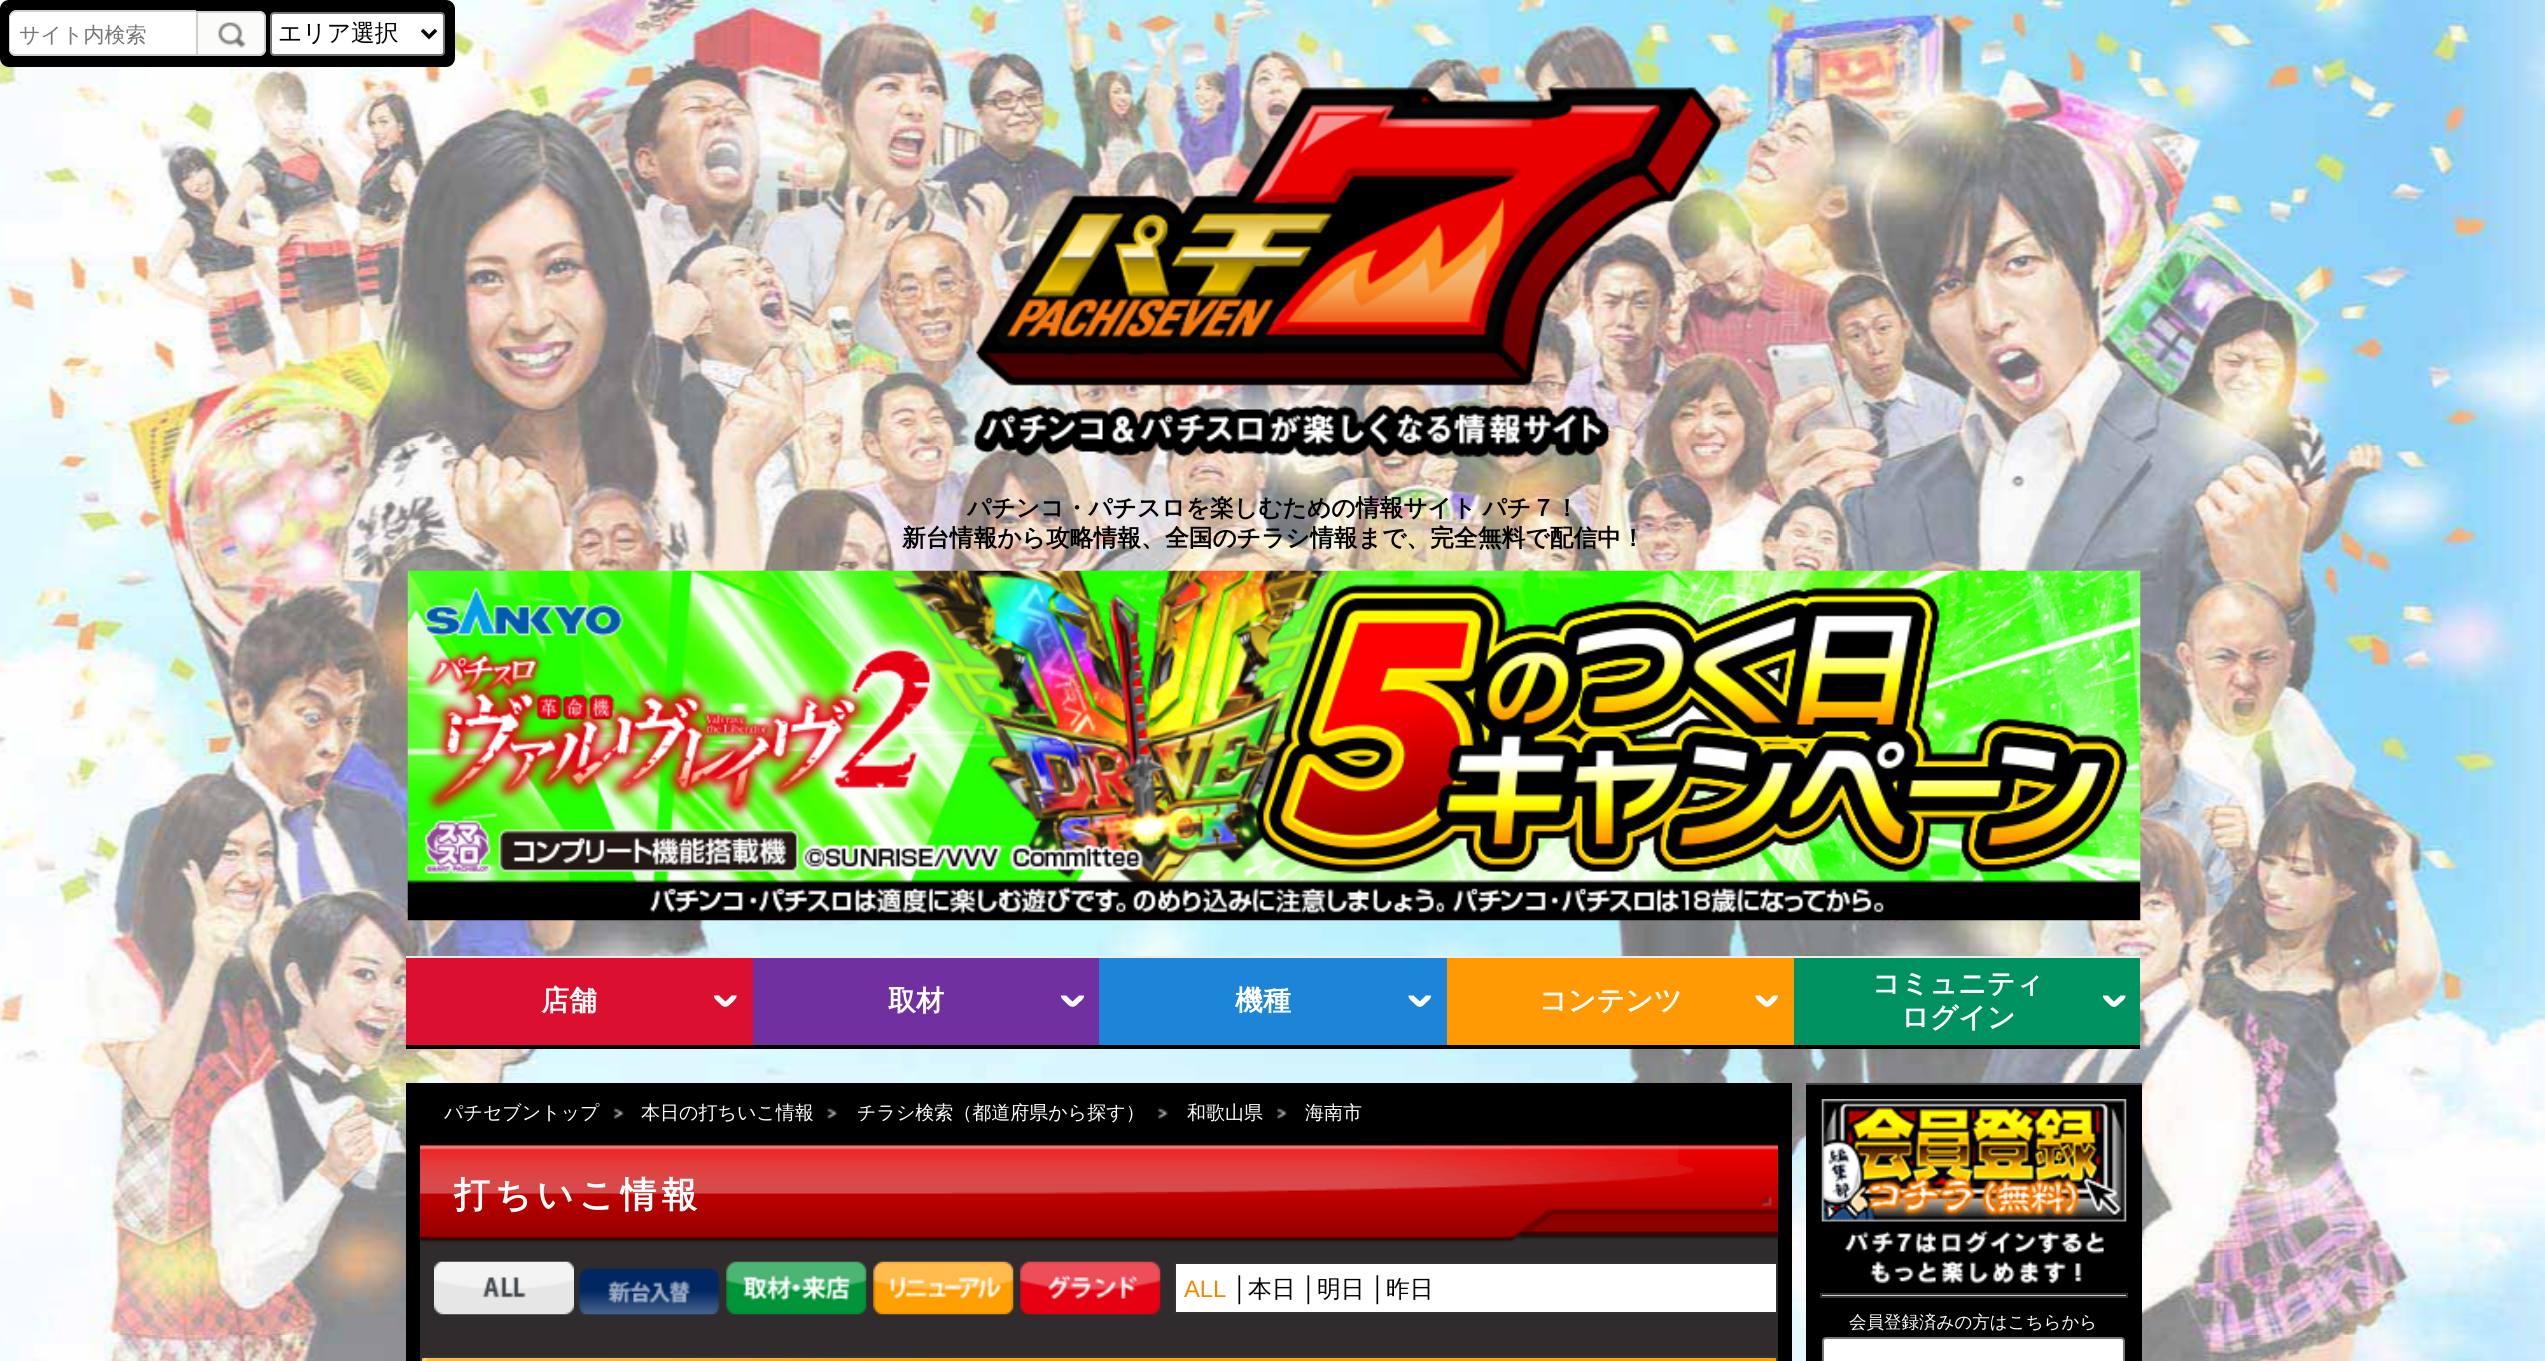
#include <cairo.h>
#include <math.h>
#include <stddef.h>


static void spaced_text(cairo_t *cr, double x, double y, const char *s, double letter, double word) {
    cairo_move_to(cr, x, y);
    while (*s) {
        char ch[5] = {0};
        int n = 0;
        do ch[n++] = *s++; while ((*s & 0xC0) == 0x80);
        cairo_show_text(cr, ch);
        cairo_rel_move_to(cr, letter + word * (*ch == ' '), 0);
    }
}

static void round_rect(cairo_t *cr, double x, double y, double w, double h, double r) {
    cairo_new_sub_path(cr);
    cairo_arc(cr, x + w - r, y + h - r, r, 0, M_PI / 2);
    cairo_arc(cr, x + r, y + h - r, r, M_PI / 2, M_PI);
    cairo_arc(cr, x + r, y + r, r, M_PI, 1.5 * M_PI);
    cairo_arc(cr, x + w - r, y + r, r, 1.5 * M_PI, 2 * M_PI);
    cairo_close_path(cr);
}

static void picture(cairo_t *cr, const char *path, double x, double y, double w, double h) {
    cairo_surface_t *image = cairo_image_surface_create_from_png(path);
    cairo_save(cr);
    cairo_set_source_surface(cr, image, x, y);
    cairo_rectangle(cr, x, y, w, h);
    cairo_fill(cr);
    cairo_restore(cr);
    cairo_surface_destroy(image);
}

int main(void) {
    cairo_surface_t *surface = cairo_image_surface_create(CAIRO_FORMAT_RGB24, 2545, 1361);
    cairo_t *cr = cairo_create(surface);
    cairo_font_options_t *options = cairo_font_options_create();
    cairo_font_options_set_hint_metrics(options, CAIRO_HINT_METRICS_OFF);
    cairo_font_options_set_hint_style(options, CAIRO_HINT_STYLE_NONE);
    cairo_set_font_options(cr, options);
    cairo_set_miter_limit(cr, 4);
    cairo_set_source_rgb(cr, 1, 1, 1);
    cairo_paint(cr);
    picture(cr, "img1.png", 0, 0, 2545, 1361);
    cairo_set_source_rgb(cr, 0, 0, 0);
    round_rect(cr, 0, 0, 455, 67, 9);
    cairo_fill(cr);
    cairo_set_source_rgb(cr, 1, 1, 1);
    cairo_new_path(cr);
    cairo_move_to(cr, 16, 11);
    cairo_line_to(cr, 196, 11);
    cairo_line_to(cr, 196, 56);
    cairo_line_to(cr, 16, 56);
    cairo_curve_to(cr, 12, 56, 9, 53, 9, 49);
    cairo_line_to(cr, 9, 18);
    cairo_curve_to(cr, 9, 14, 12, 11, 16, 11);
    cairo_close_path(cr);
    cairo_fill(cr);
    cairo_set_source_rgb(cr, 0.812, 0.812, 0.812);
    cairo_set_fill_rule(cr, CAIRO_FILL_RULE_EVEN_ODD);
    cairo_new_path(cr);
    cairo_move_to(cr, 16, 10);
    cairo_line_to(cr, 196, 10);
    cairo_line_to(cr, 196, 56);
    cairo_line_to(cr, 16, 56);
    cairo_curve_to(cr, 12, 56, 9, 53, 9, 49);
    cairo_line_to(cr, 9, 18);
    cairo_curve_to(cr, 9, 14, 12, 10, 16, 10);
    cairo_close_path(cr);
    cairo_move_to(cr, 16, 12);
    cairo_line_to(cr, 196, 12);
    cairo_line_to(cr, 196, 54);
    cairo_line_to(cr, 16, 54);
    cairo_curve_to(cr, 13, 54, 10, 52, 10, 49);
    cairo_line_to(cr, 10, 18);
    cairo_curve_to(cr, 10, 15, 13, 12, 16, 12);
    cairo_close_path(cr);
    cairo_fill(cr);
    cairo_select_font_face(cr, "WenQuanYi Zen Hei Medium", CAIRO_FONT_SLANT_NORMAL, CAIRO_FONT_WEIGHT_NORMAL);
    cairo_set_font_size(cr, 21);
    cairo_set_source_rgb(cr, 0.459, 0.459, 0.459);
    cairo_move_to(cr, 19, 42);
    cairo_show_text(cr, "サイト内検索");
    cairo_set_source_rgb(cr, 0.984, 0.984, 0.976);
    cairo_new_path(cr);
    cairo_move_to(cr, 196, 11);
    cairo_line_to(cr, 259, 11);
    cairo_curve_to(cr, 263, 11, 266, 14, 266, 18);
    cairo_line_to(cr, 266, 49);
    cairo_curve_to(cr, 266, 53, 263, 56, 259, 56);
    cairo_line_to(cr, 196, 56);
    cairo_close_path(cr);
    cairo_fill(cr);
    picture(cr, "img2.png", 218, 22, 28, 26);
    cairo_new_path(cr);
    cairo_move_to(cr, 197, 12);
    cairo_line_to(cr, 259, 12);
    cairo_curve_to(cr, 262.5, 12, 265, 14.5, 265, 18);
    cairo_line_to(cr, 265, 49);
    cairo_curve_to(cr, 265, 52.5, 262.5, 55, 259, 55);
    cairo_line_to(cr, 197, 55);
    cairo_close_path(cr);
    cairo_set_source_rgb(cr, 0.812, 0.812, 0.812);
    cairo_stroke(cr);
    cairo_set_source_rgb(cr, 1, 1, 1);
    round_rect(cr, 271, 13, 173, 42, 3);
    cairo_fill_preserve(cr);
    cairo_set_source_rgb(cr, 0.463, 0.463, 0.463);
    cairo_stroke(cr);
    cairo_new_path(cr);
    cairo_move_to(cr, 422, 30);
    cairo_line_to(cr, 429, 37);
    cairo_line_to(cr, 436, 30);
    cairo_set_source_rgb(cr, 0, 0, 0);
    cairo_set_line_width(cr, 3.5);
    cairo_stroke(cr);
    cairo_set_font_size(cr, 23.8);
    cairo_move_to(cr, 278, 41);
    cairo_show_text(cr, "エリア選択");
    picture(cr, "img3.png", 973, 87, 750, 372);
    cairo_select_font_face(cr, "WenQuanYi Zen Hei", CAIRO_FONT_SLANT_NORMAL, CAIRO_FONT_WEIGHT_BOLD);
    spaced_text(cr, 967, 516, "パチンコ・パチスロを楽しむための情報サイト パチ７！", 0, -1);
    cairo_move_to(cr, 902, 546);
    cairo_show_text(cr, "新台情報から攻略情報、全国のチラシ情報まで、完全無料で配信中！");
    picture(cr, "img4.png", 407, 570, 1734, 351);
    cairo_set_source_rgb(cr, 0.859, 0.059, 0.184);
    cairo_rectangle(cr, 406, 958, 347, 87);
    cairo_fill(cr);
    cairo_set_source_rgb(cr, 0.933, 0.933, 0.933);
    cairo_rectangle(cr, 406, 956, 1734, 2);
    cairo_fill(cr);
    cairo_set_source_rgb(cr, 0, 0, 0);
    cairo_rectangle(cr, 406, 1045, 1734, 4);
    cairo_fill(cr);
    cairo_set_font_size(cr, 28);
    cairo_set_source_rgb(cr, 1, 1, 1);
    cairo_move_to(cr, 541, 1010);
    cairo_show_text(cr, "店舗");
    cairo_new_path(cr);
    cairo_move_to(cr, 734, 995.5);
    cairo_curve_to(cr, 734, 997.5, 731.5, 999, 730.5, 1000.5);
    cairo_curve_to(cr, 725, 1005.5, 725.5, 1005.5, 720.5, 1000.5);
    cairo_curve_to(cr, 719, 999, 716.5, 997.5, 716.5, 995.5);
    cairo_set_line_width(cr, 5.3);
    cairo_stroke(cr);
    cairo_set_source_rgb(cr, 0.439, 0.188, 0.627);
    cairo_rectangle(cr, 753, 958, 346, 87);
    cairo_fill(cr);
    cairo_set_source_rgb(cr, 1, 1, 1);
    cairo_move_to(cr, 888, 1010);
    cairo_show_text(cr, "取材");
    cairo_new_path(cr);
    cairo_move_to(cr, 1081.5, 995.5);
    cairo_curve_to(cr, 1081.5, 997.5, 1079, 999, 1077.5, 1000.5);
    cairo_curve_to(cr, 1072.5, 1005.5, 1072.5, 1005.5, 1067.5, 1000.5);
    cairo_curve_to(cr, 1066.5, 999, 1063.5, 997.5, 1063.5, 995.5);
    cairo_stroke(cr);
    cairo_set_source_rgb(cr, 0.11, 0.522, 0.847);
    cairo_rectangle(cr, 1099, 958, 348, 87);
    cairo_fill(cr);
    cairo_set_source_rgb(cr, 1, 1, 1);
    cairo_move_to(cr, 1235, 1010);
    cairo_show_text(cr, "機種");
    cairo_new_path(cr);
    cairo_move_to(cr, 1428.5, 995.5);
    cairo_curve_to(cr, 1428.5, 997.5, 1426, 999, 1424.5, 1000.5);
    cairo_curve_to(cr, 1419.5, 1005.5, 1420, 1005.5, 1415, 1000.5);
    cairo_curve_to(cr, 1413.5, 999, 1411, 997.5, 1411, 995.5);
    cairo_stroke(cr);
    cairo_set_source_rgb(cr, 1, 0.604, 0.02);
    cairo_rectangle(cr, 1447, 958, 347, 87);
    cairo_fill(cr);
    cairo_set_source_rgb(cr, 1, 1, 1);
    cairo_move_to(cr, 1539, 1010);
    cairo_show_text(cr, "コンテンツ");
    cairo_new_path(cr);
    cairo_move_to(cr, 1775.5, 995.5);
    cairo_curve_to(cr, 1775.5, 997.5, 1773, 999, 1772, 1000.5);
    cairo_curve_to(cr, 1767, 1005.5, 1767, 1005.5, 1762, 1000.5);
    cairo_curve_to(cr, 1760.5, 999, 1758, 997.5, 1758, 995.5);
    cairo_stroke(cr);
    cairo_set_source_rgb(cr, 0, 0.569, 0.376);
    cairo_rectangle(cr, 1794, 958, 346, 87);
    cairo_fill(cr);
    cairo_set_source_rgb(cr, 1, 1, 1);
    cairo_move_to(cr, 1872, 993);
    cairo_show_text(cr, "コミュニティ");
    cairo_move_to(cr, 1901, 1027);
    cairo_show_text(cr, "ログイン");
    cairo_new_path(cr);
    cairo_move_to(cr, 2123, 995.5);
    cairo_curve_to(cr, 2123, 997.5, 2120.5, 999, 2119, 1000.5);
    cairo_curve_to(cr, 2114, 1005.5, 2114, 1005.5, 2109, 1000.5);
    cairo_curve_to(cr, 2108, 999, 2105.5, 997.5, 2105.5, 995.5);
    cairo_stroke(cr);
    cairo_set_source_rgb(cr, 0.188, 0.173, 0.176);
    cairo_rectangle(cr, 420, 1145, 1358, 211);
    cairo_fill(cr);
    cairo_set_source_rgb(cr, 0, 0, 0);
    cairo_rectangle(cr, 1778, 1083, 14, 278);
    cairo_fill(cr);
    cairo_rectangle(cr, 406, 1083, 14, 278);
    cairo_fill(cr);
    cairo_rectangle(cr, 420, 1083, 1358, 62);
    cairo_fill(cr);
    cairo_select_font_face(cr, "WenQuanYi Zen Hei Medium", CAIRO_FONT_SLANT_NORMAL, CAIRO_FONT_WEIGHT_NORMAL);
    cairo_set_font_size(cr, 19);
    cairo_set_source_rgb(cr, 1, 1, 1);
    cairo_move_to(cr, 444, 1119);
    cairo_show_text(cr, "パチセブントップ");
    picture(cr, "img5.png", 613, 1107, 11, 12);
    cairo_move_to(cr, 641, 1119);
    cairo_show_text(cr, "本日の打ちいこ情報");
    picture(cr, "img6.png", 827, 1107, 10, 12);
    cairo_move_to(cr, 857, 1119);
    cairo_show_text(cr, "チラシ検索（都道府県から探す）");
    picture(cr, "img7.png", 1158, 1107, 10, 12);
    cairo_move_to(cr, 1187, 1119);
    cairo_show_text(cr, "和歌山県");
    picture(cr, "img7.png", 1277, 1107, 10, 12);
    cairo_move_to(cr, 1305, 1119);
    cairo_show_text(cr, "海南市");
    picture(cr, "img8.png", 420, 1145, 1358, 97);
    cairo_select_font_face(cr, "WenQuanYi Zen Hei", CAIRO_FONT_SLANT_NORMAL, CAIRO_FONT_WEIGHT_BOLD);
    cairo_set_font_size(cr, 35.75);
    spaced_text(cr, 454, 1207, "打ちいこ情報", 5.25, 0);
    picture(cr, "img9.png", 434, 1261, 140, 54);
    picture(cr, "img10.png", 579, 1268, 141, 47);
    picture(cr, "img11.png", 726, 1261, 141, 54);
    picture(cr, "img12.png", 873, 1261, 141, 54);
    picture(cr, "img13.png", 1020, 1261, 141, 54);
    cairo_rectangle(cr, 1175, 1263, 602, 50);
    cairo_fill_preserve(cr);
    cairo_set_source_rgb(cr, 0.2, 0.2, 0.2);
    cairo_set_line_width(cr, 2);
    cairo_stroke(cr);
    cairo_select_font_face(cr, "Liberation Sans", CAIRO_FONT_SLANT_NORMAL, CAIRO_FONT_WEIGHT_NORMAL);
    cairo_set_font_size(cr, 23.8);
    cairo_set_source_rgb(cr, 0.949, 0.533, 0);
    cairo_move_to(cr, 1184, 1297);
    cairo_show_text(cr, "ALL");
    cairo_set_source_rgb(cr, 0, 0, 0);
    cairo_move_to(cr, 1233, 1297);
    cairo_show_text(cr, "│");
    cairo_select_font_face(cr, "WenQuanYi Zen Hei Medium", CAIRO_FONT_SLANT_NORMAL, CAIRO_FONT_WEIGHT_NORMAL);
    cairo_move_to(cr, 1248, 1297);
    cairo_show_text(cr, "本日");
    cairo_select_font_face(cr, "Liberation Sans", CAIRO_FONT_SLANT_NORMAL, CAIRO_FONT_WEIGHT_NORMAL);
    cairo_move_to(cr, 1302, 1297);
    cairo_show_text(cr, "│");
    cairo_select_font_face(cr, "WenQuanYi Zen Hei Medium", CAIRO_FONT_SLANT_NORMAL, CAIRO_FONT_WEIGHT_NORMAL);
    cairo_move_to(cr, 1317, 1297);
    cairo_show_text(cr, "明日");
    cairo_select_font_face(cr, "Liberation Sans", CAIRO_FONT_SLANT_NORMAL, CAIRO_FONT_WEIGHT_NORMAL);
    cairo_move_to(cr, 1371, 1297);
    cairo_show_text(cr, "│");
    cairo_select_font_face(cr, "WenQuanYi Zen Hei Medium", CAIRO_FONT_SLANT_NORMAL, CAIRO_FONT_WEIGHT_NORMAL);
    cairo_move_to(cr, 1386, 1297);
    cairo_show_text(cr, "昨日");
    cairo_rectangle(cr, 421, 1357, 1356, 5);
    cairo_set_source_rgb(cr, 0.2, 0.2, 0.2);
    cairo_stroke(cr);
    cairo_set_source_rgb(cr, 0.953, 0.596, 0);
    cairo_rectangle(cr, 422, 1358, 1354, 3);
    cairo_fill(cr);
    picture(cr, "img14.png", 421, 1358, 1356, 3);
    cairo_set_source_rgb(cr, 0, 0, 0);
    cairo_rectangle(cr, 1806, 1085, 336, 276);
    cairo_fill(cr);
    cairo_set_source_rgb(cr, 0.255, 0.255, 0.255);
    cairo_rectangle(cr, 1806, 1083, 336, 2);
    cairo_fill(cr);
    picture(cr, "img15.png", 1821, 1099, 306, 123);
    picture(cr, "img16.png", 1844, 1230, 260, 55);
    cairo_set_source_rgb(cr, 0.8, 0.8, 0.8);
    cairo_rectangle(cr, 1821, 1294, 306, 3);
    cairo_fill_preserve(cr);
    cairo_set_source_rgb(cr, 0.2, 0.2, 0.2);
    cairo_stroke(cr);
    cairo_set_font_size(cr, 17.5);
    cairo_set_source_rgb(cr, 1, 1, 1);
    cairo_move_to(cr, 1849, 1328);
    cairo_show_text(cr, "会員登録済みの方はこちらから");
    round_rect(cr, 1823, 1338, 301, 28, 3);
    cairo_fill_preserve(cr);
    cairo_set_source_rgb(cr, 0.463, 0.463, 0.463);
    cairo_stroke(cr);
    cairo_surface_write_to_png(surface, "page.png");
    cairo_font_options_destroy(options);
    cairo_destroy(cr);
    cairo_surface_destroy(surface);
    return 0;
}
